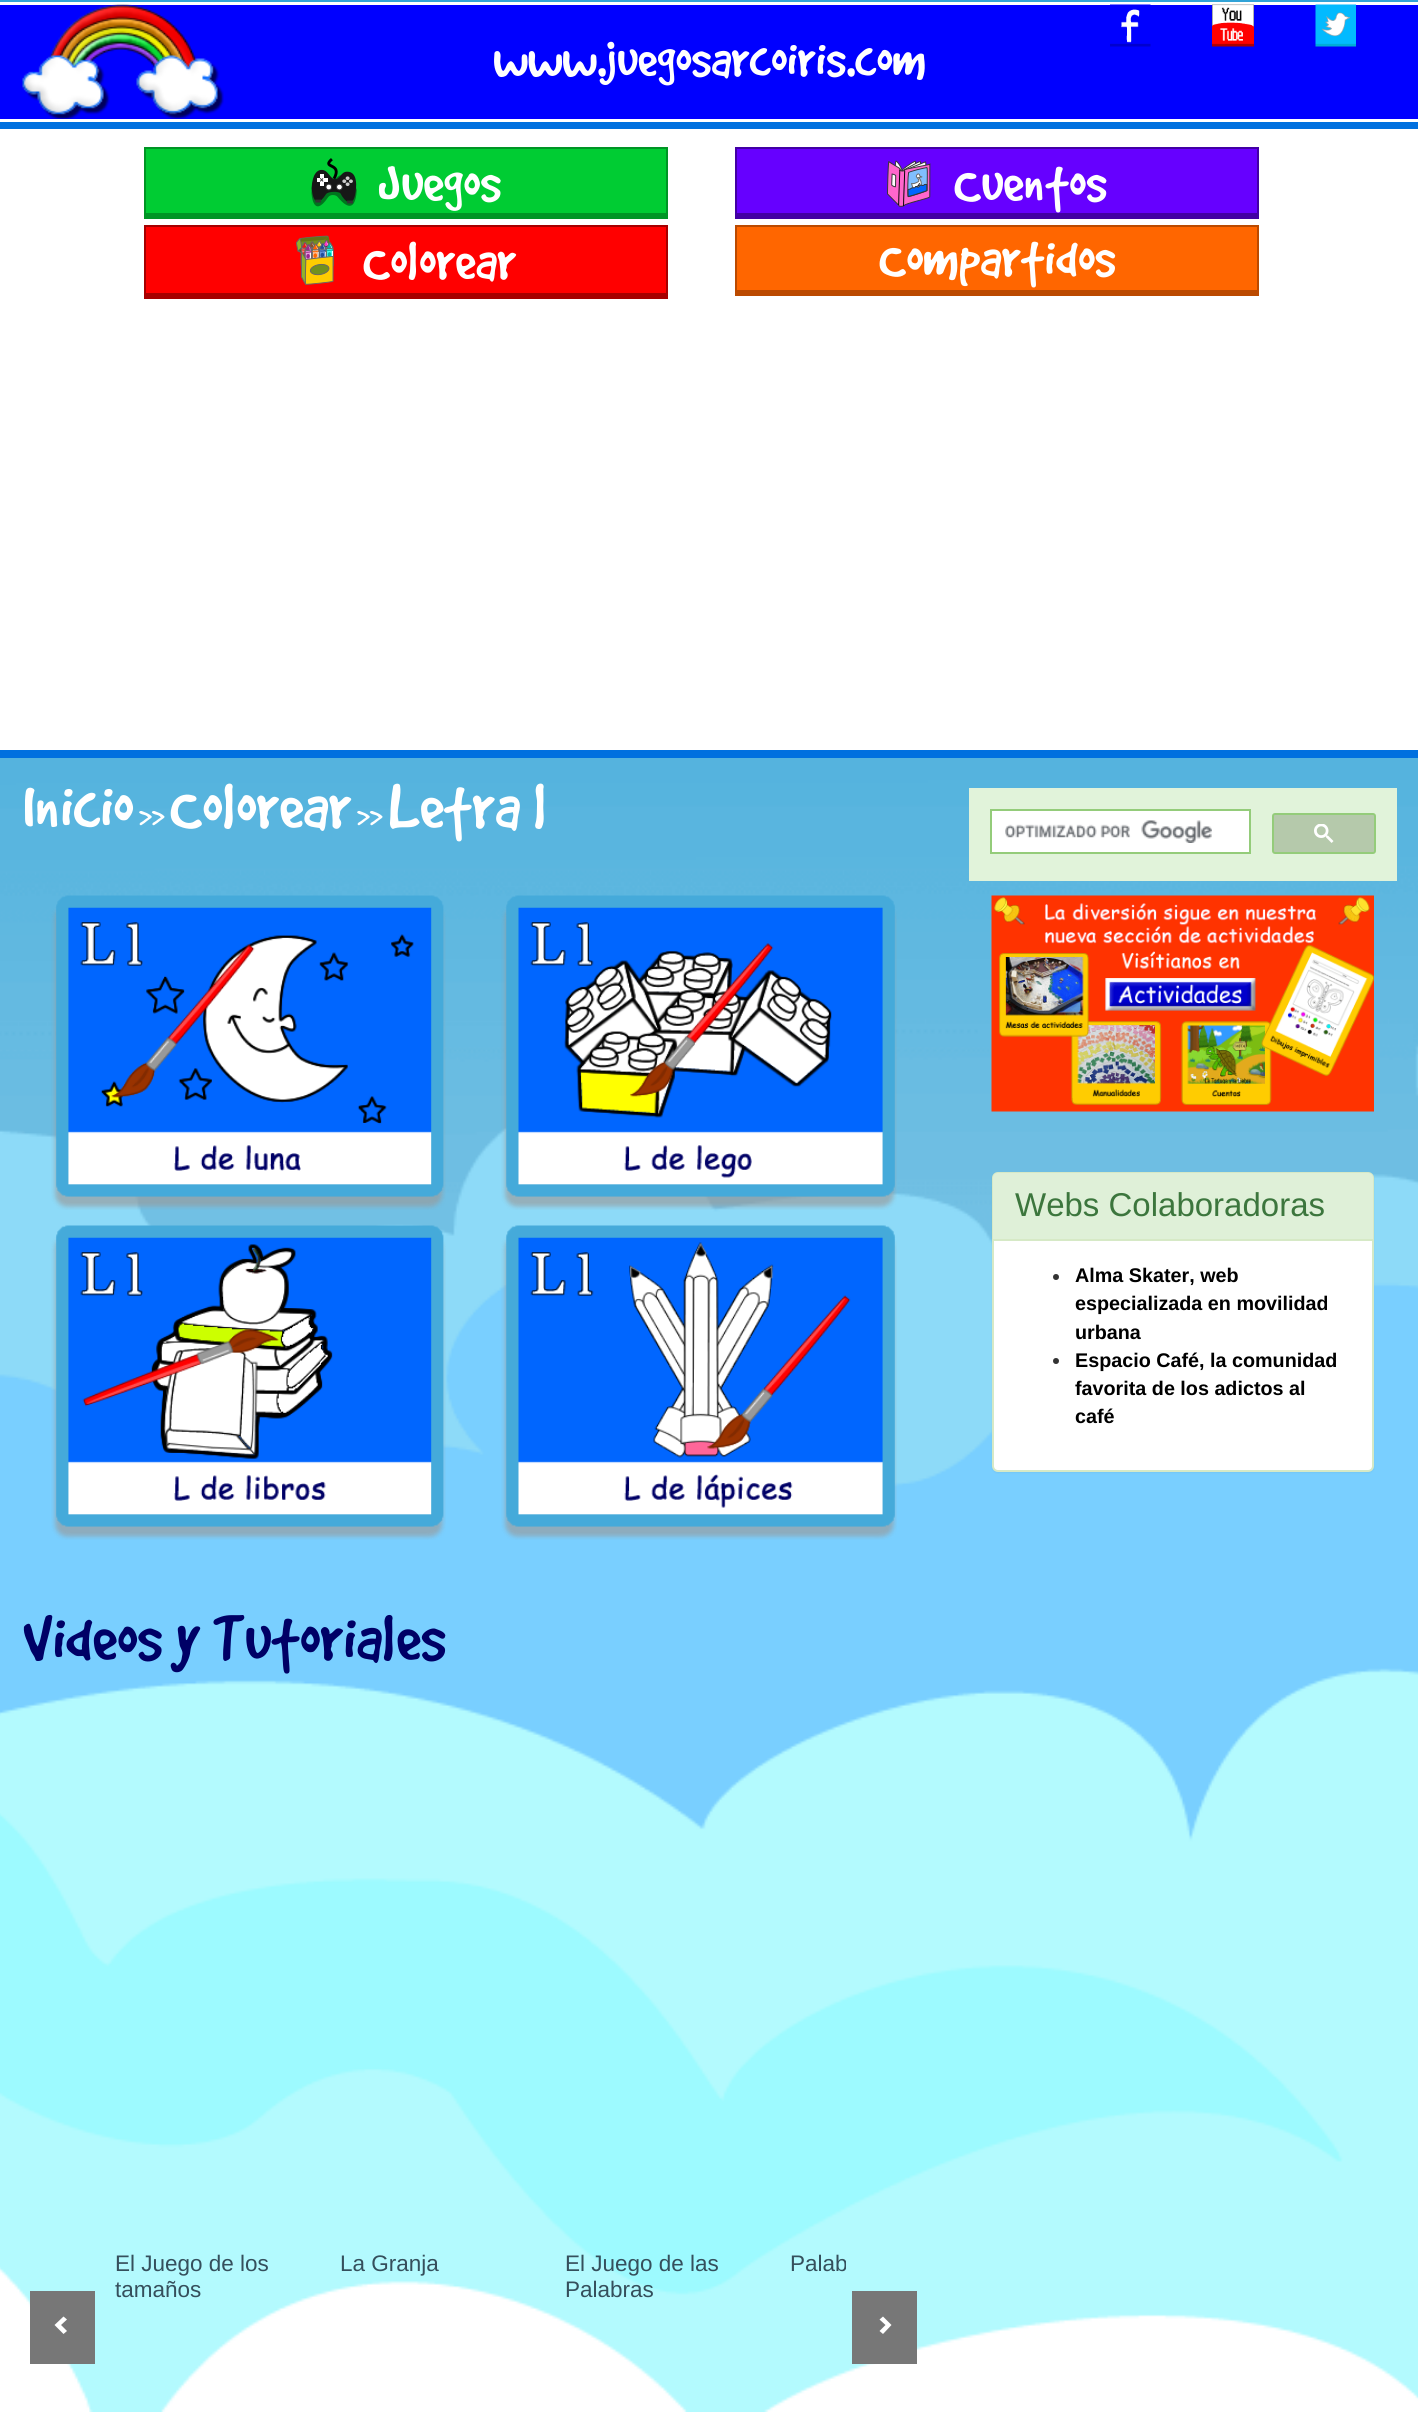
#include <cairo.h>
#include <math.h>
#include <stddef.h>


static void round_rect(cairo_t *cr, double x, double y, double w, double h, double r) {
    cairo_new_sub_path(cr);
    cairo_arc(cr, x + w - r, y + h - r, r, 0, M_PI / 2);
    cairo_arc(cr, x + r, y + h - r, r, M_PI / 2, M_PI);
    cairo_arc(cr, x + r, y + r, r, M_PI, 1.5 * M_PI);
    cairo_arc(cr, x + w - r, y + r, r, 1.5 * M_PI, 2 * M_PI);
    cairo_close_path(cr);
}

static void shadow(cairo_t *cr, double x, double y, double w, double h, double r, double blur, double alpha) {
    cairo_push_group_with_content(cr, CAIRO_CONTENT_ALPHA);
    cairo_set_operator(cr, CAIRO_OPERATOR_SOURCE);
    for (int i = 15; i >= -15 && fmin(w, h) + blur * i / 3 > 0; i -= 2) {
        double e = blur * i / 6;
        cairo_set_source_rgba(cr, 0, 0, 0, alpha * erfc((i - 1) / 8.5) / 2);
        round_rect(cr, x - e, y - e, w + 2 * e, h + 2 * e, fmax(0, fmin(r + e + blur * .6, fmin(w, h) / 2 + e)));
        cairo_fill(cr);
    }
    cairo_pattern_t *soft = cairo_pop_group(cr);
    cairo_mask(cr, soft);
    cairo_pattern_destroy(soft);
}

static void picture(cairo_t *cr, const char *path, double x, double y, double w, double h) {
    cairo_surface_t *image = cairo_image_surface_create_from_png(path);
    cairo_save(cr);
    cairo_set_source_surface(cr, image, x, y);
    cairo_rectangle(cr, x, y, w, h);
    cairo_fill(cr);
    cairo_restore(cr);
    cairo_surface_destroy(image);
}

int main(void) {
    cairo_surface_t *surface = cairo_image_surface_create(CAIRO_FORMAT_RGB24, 1418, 2412);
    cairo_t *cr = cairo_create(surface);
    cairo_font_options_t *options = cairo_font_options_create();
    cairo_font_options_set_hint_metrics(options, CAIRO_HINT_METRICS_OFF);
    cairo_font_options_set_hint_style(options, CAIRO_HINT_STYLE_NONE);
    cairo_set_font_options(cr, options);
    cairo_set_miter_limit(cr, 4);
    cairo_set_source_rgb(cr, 1, 1, 1);
    cairo_paint(cr);
    picture(cr, "img1.png", 0, 0, 1418, 2412);
    cairo_set_source_rgb(cr, 1, 1, 1);
    cairo_rectangle(cr, 0, 129, 1418, 621);
    cairo_fill(cr);
    cairo_set_source_rgb(cr, 0, 0, 1);
    cairo_rectangle(cr, 0, 5, 1418, 114);
    cairo_fill(cr);
    cairo_set_source_rgb(cr, 1, 1, 1);
    cairo_rectangle(cr, 0, 2, 1418, 3);
    cairo_fill(cr);
    cairo_rectangle(cr, 0, 119, 1418, 3);
    cairo_fill(cr);
    picture(cr, "img2.png", 22, 4, 202, 115);
    picture(cr, "img3.png", 1110, 4, 41, 43);
    picture(cr, "img4.png", 1212, 4, 42, 43);
    picture(cr, "img5.png", 1315, 4, 41, 43);
    cairo_select_font_face(cr, "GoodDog", CAIRO_FONT_SLANT_NORMAL, CAIRO_FONT_WEIGHT_NORMAL);
    cairo_set_font_size(cr, 56.75);
    cairo_move_to(cr, 493, 77);
    cairo_show_text(cr, "www.juegosarcoiris.com");
    cairo_set_source_rgb(cr, 0, 0.439, 0.875);
    cairo_rectangle(cr, 0, 122, 1418, 7);
    cairo_fill(cr);
    cairo_set_source_rgb(cr, 0, 0.8, 0.2);
    cairo_rectangle(cr, 146, 149, 520, 64);
    cairo_fill(cr);
    cairo_set_source_rgb(cr, 0, 0.584, 0.145);
    cairo_rectangle(cr, 144, 147, 524, 2);
    cairo_fill(cr);
    cairo_rectangle(cr, 666, 147, 2, 72);
    cairo_fill(cr);
    cairo_rectangle(cr, 144, 213, 524, 6);
    cairo_fill(cr);
    cairo_rectangle(cr, 144, 147, 2, 72);
    cairo_fill(cr);
    picture(cr, "img6.png", 311, 158, 46, 49);
    cairo_set_font_size(cr, 60);
    cairo_set_source_rgb(cr, 1, 1, 1);
    cairo_move_to(cr, 378, 202);
    cairo_show_text(cr, "Juegos");
    cairo_set_source_rgb(cr, 0.4, 0, 1);
    cairo_rectangle(cr, 737, 149, 520, 64);
    cairo_fill(cr);
    cairo_set_source_rgb(cr, 0.259, 0, 0.643);
    cairo_rectangle(cr, 735, 147, 524, 2);
    cairo_fill(cr);
    cairo_rectangle(cr, 1257, 147, 2, 72);
    cairo_fill(cr);
    cairo_rectangle(cr, 735, 213, 524, 6);
    cairo_fill(cr);
    cairo_rectangle(cr, 735, 147, 2, 72);
    cairo_fill(cr);
    picture(cr, "img7.png", 887, 160, 44, 47);
    cairo_set_source_rgb(cr, 1, 1, 1);
    cairo_move_to(cr, 954, 202);
    cairo_show_text(cr, "Cuentos");
    cairo_set_source_rgb(cr, 1, 0, 0);
    cairo_rectangle(cr, 146, 227, 520, 66);
    cairo_fill(cr);
    cairo_set_source_rgb(cr, 0.651, 0, 0);
    cairo_rectangle(cr, 144, 225, 524, 2);
    cairo_fill(cr);
    cairo_rectangle(cr, 666, 225, 2, 74);
    cairo_fill(cr);
    cairo_rectangle(cr, 144, 293, 524, 6);
    cairo_fill(cr);
    cairo_rectangle(cr, 144, 225, 2, 74);
    cairo_fill(cr);
    picture(cr, "img8.png", 296, 235, 38, 50);
    cairo_set_source_rgb(cr, 1, 1, 1);
    cairo_move_to(cr, 363, 280);
    cairo_show_text(cr, "Colorear");
    cairo_set_source_rgb(cr, 1, 0.4, 0);
    cairo_rectangle(cr, 737, 227, 520, 63);
    cairo_fill(cr);
    cairo_set_source_rgb(cr, 0.733, 0.29, 0);
    cairo_rectangle(cr, 735, 225, 524, 2);
    cairo_fill(cr);
    cairo_rectangle(cr, 1257, 225, 2, 71);
    cairo_fill(cr);
    cairo_rectangle(cr, 735, 290, 524, 6);
    cairo_fill(cr);
    cairo_rectangle(cr, 735, 225, 2, 71);
    cairo_fill(cr);
    cairo_set_source_rgb(cr, 1, 1, 1);
    cairo_move_to(cr, 879, 277);
    cairo_show_text(cr, "Compartidos");
    cairo_set_source_rgb(cr, 0, 0.439, 0.875);
    cairo_rectangle(cr, 0, 750, 1418, 8);
    cairo_fill(cr);
    cairo_set_font_size(cr, 71);
    cairo_set_source_rgb(cr, 1, 1, 1);
    cairo_move_to(cr, 23, 829);
    cairo_show_text(cr, "Inicio");
    cairo_set_font_size(cr, 33);
    cairo_move_to(cr, 139, 829);
    cairo_show_text(cr, ">>");
    cairo_set_font_size(cr, 71);
    cairo_move_to(cr, 170, 829);
    cairo_show_text(cr, "Colorear");
    cairo_set_font_size(cr, 33);
    cairo_move_to(cr, 357, 829);
    cairo_show_text(cr, ">>");
    cairo_set_font_size(cr, 71);
    cairo_move_to(cr, 389, 829);
    cairo_show_text(cr, "Letra l");
    cairo_set_source_rgb(cr, 0.882, 0.953, 0.855);
    cairo_rectangle(cr, 969, 788, 428, 93);
    cairo_fill(cr);
    cairo_set_source_rgb(cr, 1, 1, 1);
    cairo_rectangle(cr, 991, 810, 259, 43);
    cairo_fill_preserve(cr);
    cairo_set_source_rgb(cr, 0.58, 0.8, 0.478);
    cairo_stroke(cr);
    picture(cr, "img9.png", 1005, 820, 207, 23);
    cairo_set_source_rgb(cr, 0.71, 0.788, 0.671);
    round_rect(cr, 1273, 814, 102, 39, 2);
    cairo_fill_preserve(cr);
    cairo_set_source_rgb(cr, 0.58, 0.8, 0.478);
    cairo_stroke(cr);
    picture(cr, "img10.png", 1314, 824, 20, 19);
    picture(cr, "img11.png", 991, 895, 383, 217);
    cairo_set_source_rgb(cr, 0, 0, 0);
    shadow(cr, 992, 1173, 382, 300, 6, 1, 0.05);
    cairo_set_source_rgb(cr, 1, 1, 1);
    round_rect(cr, 993, 1173, 380, 298, 5);
    cairo_fill_preserve(cr);
    cairo_set_source_rgb(cr, 0.839, 0.914, 0.776);
    cairo_stroke(cr);
    cairo_set_source_rgb(cr, 0.875, 0.941, 0.847);
    cairo_new_path(cr);
    cairo_move_to(cr, 998, 1173);
    cairo_line_to(cr, 1368, 1173);
    cairo_curve_to(cr, 1371, 1173, 1373, 1175, 1373, 1178);
    cairo_line_to(cr, 1373, 1241);
    cairo_line_to(cr, 993, 1241);
    cairo_line_to(cr, 993, 1178);
    cairo_curve_to(cr, 993, 1175, 995, 1173, 998, 1173);
    cairo_close_path(cr);
    cairo_fill(cr);
    cairo_set_source_rgb(cr, 0.839, 0.914, 0.776);
    cairo_rectangle(cr, 993, 1239, 380, 2);
    cairo_fill(cr);
    cairo_select_font_face(cr, "Liberation Sans", CAIRO_FONT_SLANT_NORMAL, CAIRO_FONT_WEIGHT_NORMAL);
    cairo_set_font_size(cr, 33);
    cairo_set_source_rgb(cr, 0.235, 0.463, 0.239);
    cairo_move_to(cr, 1015, 1216);
    cairo_show_text(cr, "Webs Colaboradoras");
    cairo_set_source_rgb(cr, 0.2, 0.2, 0.2);
    cairo_new_path(cr);
    cairo_arc(cr, 1056, 1277, 3, 0, 2 * M_PI);
    cairo_fill(cr);
    cairo_select_font_face(cr, "Liberation Sans", CAIRO_FONT_SLANT_NORMAL, CAIRO_FONT_WEIGHT_BOLD);
    cairo_set_font_size(cr, 19.75);
    cairo_set_source_rgb(cr, 0, 0, 0);
    cairo_move_to(cr, 1075, 1282);
    cairo_show_text(cr, "Alma Skater, web");
    cairo_move_to(cr, 1075, 1310);
    cairo_show_text(cr, "especializada en movilidad");
    cairo_move_to(cr, 1075, 1339);
    cairo_show_text(cr, "urbana");
    cairo_set_source_rgb(cr, 0.2, 0.2, 0.2);
    cairo_new_path(cr);
    cairo_arc(cr, 1056, 1361, 3, 0, 2 * M_PI);
    cairo_fill(cr);
    cairo_set_source_rgb(cr, 0, 0, 0);
    cairo_move_to(cr, 1075, 1367);
    cairo_show_text(cr, "Espacio Café, la comunidad");
    cairo_move_to(cr, 1075, 1395);
    cairo_show_text(cr, "favorita de los adictos al");
    cairo_move_to(cr, 1075, 1423);
    cairo_show_text(cr, "café");
    picture(cr, "img12.png", 51, 895, 395, 315);
    picture(cr, "img13.png", 501, 895, 396, 315);
    picture(cr, "img14.png", 51, 1225, 395, 315);
    picture(cr, "img15.png", 501, 1225, 396, 315);
    cairo_select_font_face(cr, "GoodDog", CAIRO_FONT_SLANT_NORMAL, CAIRO_FONT_WEIGHT_NORMAL);
    cairo_set_font_size(cr, 72);
    cairo_set_source_rgb(cr, 0, 0, 0.4);
    cairo_move_to(cr, 23, 1661);
    cairo_show_text(cr, "Videos y Tutoriales");
    cairo_select_font_face(cr, "Liberation Sans", CAIRO_FONT_SLANT_NORMAL, CAIRO_FONT_WEIGHT_NORMAL);
    cairo_set_font_size(cr, 22.5);
    cairo_set_source_rgb(cr, 0.208, 0.31, 0.361);
    cairo_move_to(cr, 115, 2271);
    cairo_show_text(cr, "El Juego de los");
    cairo_move_to(cr, 115, 2297);
    cairo_show_text(cr, "tamaños");
    cairo_move_to(cr, 340, 2271);
    cairo_show_text(cr, "La Granja");
    cairo_move_to(cr, 565, 2271);
    cairo_show_text(cr, "El Juego de las");
    cairo_move_to(cr, 565, 2297);
    cairo_show_text(cr, "Palabras");
    cairo_save(cr);
    cairo_rectangle(cr, 776, 2201, 70, 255);
    cairo_clip(cr);
    cairo_move_to(cr, 790, 2271);
    cairo_show_text(cr, "Palab");
    cairo_restore(cr);
    cairo_set_source_rgb(cr, 0.467, 0.467, 0.467);
    cairo_rectangle(cr, 30, 2291, 65, 73);
    cairo_fill(cr);
    cairo_set_source_rgb(cr, 1, 1, 1);
    cairo_new_path(cr);
    cairo_move_to(cr, 67, 2319.5);
    cairo_line_to(cr, 61, 2325);
    cairo_line_to(cr, 67, 2331);
    cairo_line_to(cr, 63.5, 2334);
    cairo_line_to(cr, 54.5, 2325);
    cairo_line_to(cr, 63.5, 2316.5);
    cairo_close_path(cr);
    cairo_fill(cr);
    cairo_set_source_rgb(cr, 0.467, 0.467, 0.467);
    cairo_rectangle(cr, 852, 2291, 65, 73);
    cairo_fill(cr);
    cairo_set_source_rgb(cr, 1, 1, 1);
    cairo_new_path(cr);
    cairo_move_to(cr, 891.5, 2325);
    cairo_line_to(cr, 883, 2334);
    cairo_line_to(cr, 879.5, 2331);
    cairo_line_to(cr, 885.5, 2325);
    cairo_line_to(cr, 879.5, 2319.5);
    cairo_line_to(cr, 883, 2316.5);
    cairo_close_path(cr);
    cairo_fill(cr);
    cairo_surface_write_to_png(surface, "page.png");
    cairo_font_options_destroy(options);
    cairo_destroy(cr);
    cairo_surface_destroy(surface);
    return 0;
}
